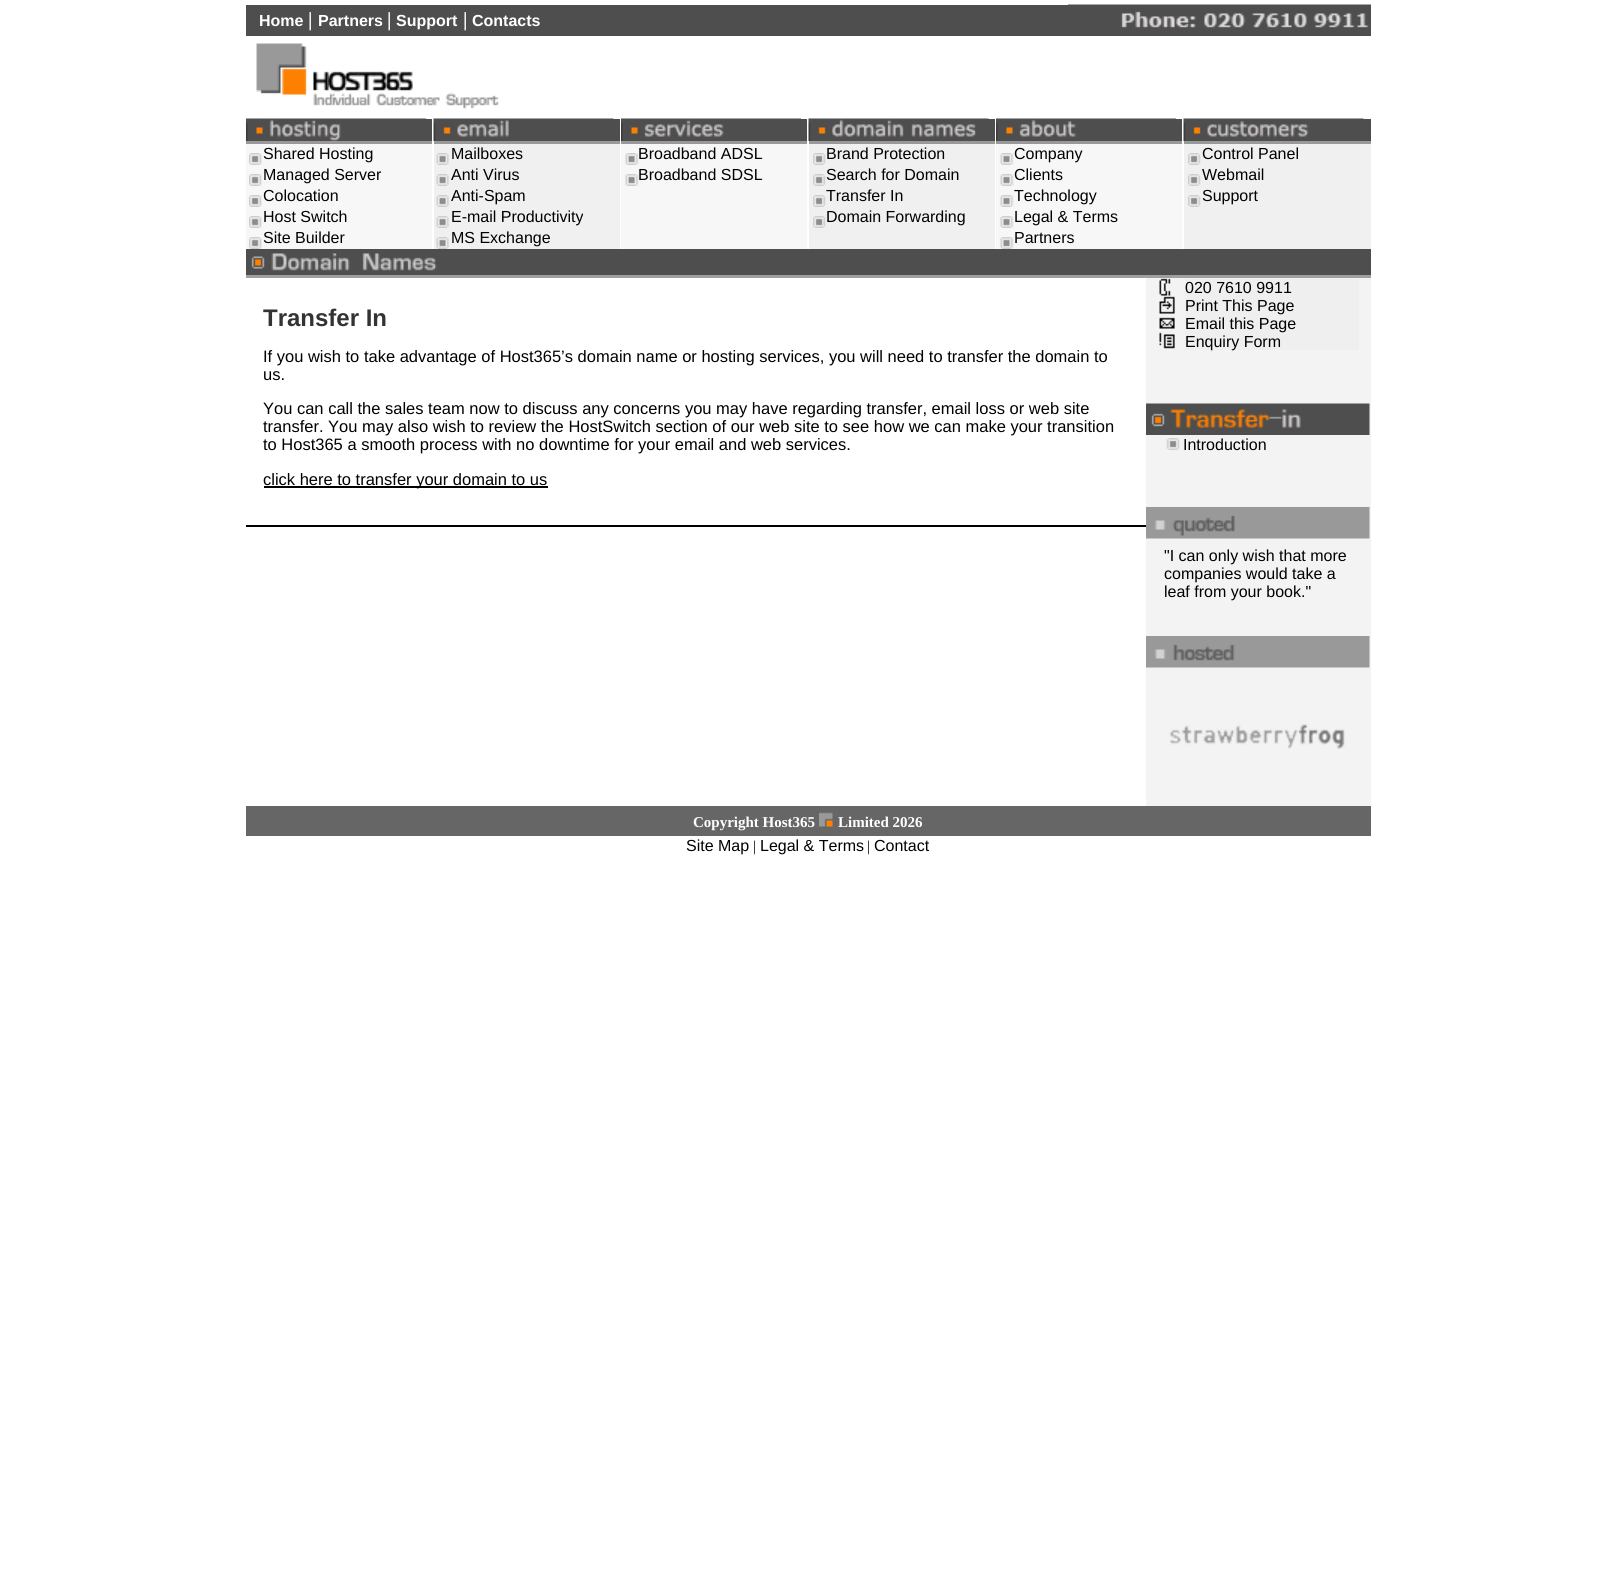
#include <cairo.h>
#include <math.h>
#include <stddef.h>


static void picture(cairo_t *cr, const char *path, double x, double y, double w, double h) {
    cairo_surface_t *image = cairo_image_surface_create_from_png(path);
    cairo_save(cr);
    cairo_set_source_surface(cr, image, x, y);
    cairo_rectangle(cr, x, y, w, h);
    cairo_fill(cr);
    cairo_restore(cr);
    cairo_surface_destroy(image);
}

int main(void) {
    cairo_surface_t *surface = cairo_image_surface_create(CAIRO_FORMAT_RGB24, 1615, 1569);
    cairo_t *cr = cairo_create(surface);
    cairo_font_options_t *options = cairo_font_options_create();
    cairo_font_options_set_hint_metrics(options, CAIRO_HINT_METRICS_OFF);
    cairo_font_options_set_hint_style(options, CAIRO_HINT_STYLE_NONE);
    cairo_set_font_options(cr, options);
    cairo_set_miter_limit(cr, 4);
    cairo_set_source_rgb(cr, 1, 1, 1);
    cairo_paint(cr);
    cairo_set_source_rgb(cr, 0.31, 0.306, 0.306);
    cairo_rectangle(cr, 246, 5, 1125, 31);
    cairo_fill(cr);
    cairo_select_font_face(cr, "Liberation Sans", CAIRO_FONT_SLANT_NORMAL, CAIRO_FONT_WEIGHT_BOLD);
    cairo_set_font_size(cr, 16);
    cairo_set_source_rgb(cr, 1, 1, 1);
    cairo_move_to(cr, 259, 26);
    cairo_show_text(cr, "Home");
    cairo_select_font_face(cr, "Liberation Serif", CAIRO_FONT_SLANT_NORMAL, CAIRO_FONT_WEIGHT_BOLD);
    cairo_set_font_size(cr, 20);
    cairo_move_to(cr, 308, 26);
    cairo_show_text(cr, "|");
    cairo_select_font_face(cr, "Liberation Sans", CAIRO_FONT_SLANT_NORMAL, CAIRO_FONT_WEIGHT_BOLD);
    cairo_set_font_size(cr, 16);
    cairo_move_to(cr, 318, 26);
    cairo_show_text(cr, "Partners");
    cairo_select_font_face(cr, "Liberation Serif", CAIRO_FONT_SLANT_NORMAL, CAIRO_FONT_WEIGHT_BOLD);
    cairo_set_font_size(cr, 20);
    cairo_move_to(cr, 387, 26);
    cairo_show_text(cr, "|");
    cairo_select_font_face(cr, "Liberation Sans", CAIRO_FONT_SLANT_NORMAL, CAIRO_FONT_WEIGHT_BOLD);
    cairo_set_font_size(cr, 16);
    cairo_move_to(cr, 396, 26);
    cairo_show_text(cr, "Support");
    cairo_select_font_face(cr, "Liberation Serif", CAIRO_FONT_SLANT_NORMAL, CAIRO_FONT_WEIGHT_BOLD);
    cairo_set_font_size(cr, 20);
    cairo_move_to(cr, 463, 26);
    cairo_show_text(cr, "|");
    cairo_select_font_face(cr, "Liberation Sans", CAIRO_FONT_SLANT_NORMAL, CAIRO_FONT_WEIGHT_BOLD);
    cairo_set_font_size(cr, 16);
    cairo_move_to(cr, 472, 26);
    cairo_show_text(cr, "Contacts");
    picture(cr, "img1.png", 1068, 4, 303, 24);
    picture(cr, "img2.png", 256, 43, 243, 66);
    cairo_set_source_rgb(cr, 0.31, 0.306, 0.306);
    cairo_rectangle(cr, 426, 119, 6, 22);
    cairo_fill(cr);
    picture(cr, "img3.png", 246, 118, 180, 23);
    cairo_rectangle(cr, 613, 119, 7, 22);
    cairo_fill(cr);
    picture(cr, "img4.png", 433, 118, 181, 23);
    cairo_rectangle(cr, 801, 119, 6, 22);
    cairo_fill(cr);
    picture(cr, "img5.png", 621, 118, 180, 23);
    cairo_rectangle(cr, 988, 119, 7, 22);
    cairo_fill(cr);
    picture(cr, "img6.png", 808, 118, 181, 23);
    cairo_rectangle(cr, 1176, 119, 6, 22);
    cairo_fill(cr);
    picture(cr, "img7.png", 996, 118, 180, 23);
    cairo_rectangle(cr, 1363, 119, 8, 22);
    cairo_fill(cr);
    picture(cr, "img8.png", 1183, 118, 181, 23);
    cairo_set_source_rgb(cr, 0.6, 0.6, 0.6);
    cairo_rectangle(cr, 246, 141, 186, 3);
    cairo_fill(cr);
    cairo_rectangle(cr, 434, 141, 186, 3);
    cairo_fill(cr);
    cairo_rectangle(cr, 621, 141, 186, 3);
    cairo_fill(cr);
    cairo_rectangle(cr, 809, 141, 186, 3);
    cairo_fill(cr);
    cairo_rectangle(cr, 996, 141, 186, 3);
    cairo_fill(cr);
    cairo_rectangle(cr, 1184, 141, 187, 3);
    cairo_fill(cr);
    cairo_set_source_rgb(cr, 0.965, 0.965, 0.965);
    cairo_rectangle(cr, 246, 144, 186, 105);
    cairo_fill(cr);
    picture(cr, "img9.png", 249, 153, 13, 12);
    cairo_select_font_face(cr, "Liberation Sans", CAIRO_FONT_SLANT_NORMAL, CAIRO_FONT_WEIGHT_NORMAL);
    cairo_set_source_rgb(cr, 0, 0, 0);
    cairo_move_to(cr, 263, 159);
    cairo_show_text(cr, "Shared Hosting");
    picture(cr, "img9.png", 249, 174, 13, 12);
    cairo_move_to(cr, 263, 180);
    cairo_show_text(cr, "Managed Server");
    picture(cr, "img9.png", 249, 195, 13, 12);
    cairo_move_to(cr, 263, 201);
    cairo_show_text(cr, "Colocation");
    picture(cr, "img9.png", 249, 216, 13, 12);
    cairo_move_to(cr, 263, 222);
    cairo_show_text(cr, "Host Switch");
    picture(cr, "img9.png", 249, 237, 13, 12);
    cairo_move_to(cr, 263, 243);
    cairo_show_text(cr, "Site Builder");
    cairo_set_source_rgb(cr, 0.941, 0.941, 0.941);
    cairo_rectangle(cr, 434, 144, 186, 105);
    cairo_fill(cr);
    picture(cr, "img10.png", 436, 153, 13, 12);
    cairo_set_source_rgb(cr, 0, 0, 0);
    cairo_move_to(cr, 451, 159);
    cairo_show_text(cr, "Mailboxes");
    picture(cr, "img10.png", 436, 174, 13, 12);
    cairo_move_to(cr, 451, 180);
    cairo_show_text(cr, "Anti Virus");
    picture(cr, "img10.png", 436, 195, 13, 12);
    cairo_move_to(cr, 451, 201);
    cairo_show_text(cr, "Anti-Spam");
    picture(cr, "img10.png", 436, 216, 13, 12);
    cairo_move_to(cr, 451, 222);
    cairo_show_text(cr, "E-mail Productivity");
    picture(cr, "img10.png", 436, 237, 13, 12);
    cairo_move_to(cr, 451, 243);
    cairo_show_text(cr, "MS Exchange");
    cairo_set_source_rgb(cr, 0.965, 0.965, 0.965);
    cairo_rectangle(cr, 621, 144, 186, 105);
    cairo_fill(cr);
    picture(cr, "img11.png", 625, 153, 14, 12);
    cairo_set_source_rgb(cr, 0, 0, 0);
    cairo_move_to(cr, 638, 159);
    cairo_show_text(cr, "Broadband ADSL");
    picture(cr, "img11.png", 625, 174, 14, 12);
    cairo_move_to(cr, 638, 180);
    cairo_show_text(cr, "Broadband SDSL");
    cairo_set_source_rgb(cr, 0.941, 0.941, 0.941);
    cairo_rectangle(cr, 809, 144, 186, 105);
    cairo_fill(cr);
    picture(cr, "img9.png", 813, 153, 13, 12);
    cairo_set_source_rgb(cr, 0, 0, 0);
    cairo_move_to(cr, 826, 159);
    cairo_show_text(cr, "Brand Protection");
    picture(cr, "img9.png", 813, 174, 13, 12);
    cairo_move_to(cr, 826, 180);
    cairo_show_text(cr, "Search for Domain");
    picture(cr, "img9.png", 813, 195, 13, 12);
    cairo_move_to(cr, 826, 201);
    cairo_show_text(cr, "Transfer In");
    picture(cr, "img9.png", 813, 216, 13, 12);
    cairo_move_to(cr, 826, 222);
    cairo_show_text(cr, "Domain Forwarding");
    cairo_set_source_rgb(cr, 0.965, 0.965, 0.965);
    cairo_rectangle(cr, 996, 144, 186, 105);
    cairo_fill(cr);
    picture(cr, "img12.png", 1000, 153, 14, 12);
    cairo_set_source_rgb(cr, 0, 0, 0);
    cairo_move_to(cr, 1014, 159);
    cairo_show_text(cr, "Company");
    picture(cr, "img12.png", 1000, 174, 14, 12);
    cairo_move_to(cr, 1014, 180);
    cairo_show_text(cr, "Clients");
    picture(cr, "img12.png", 1000, 195, 14, 12);
    cairo_move_to(cr, 1014, 201);
    cairo_show_text(cr, "Technology");
    picture(cr, "img12.png", 1000, 216, 14, 12);
    cairo_move_to(cr, 1014, 222);
    cairo_show_text(cr, "Legal & Terms");
    picture(cr, "img12.png", 1000, 237, 14, 12);
    cairo_move_to(cr, 1014, 243);
    cairo_show_text(cr, "Partners");
    cairo_set_source_rgb(cr, 0.941, 0.941, 0.941);
    cairo_rectangle(cr, 1184, 144, 187, 105);
    cairo_fill(cr);
    picture(cr, "img13.png", 1188, 153, 13, 12);
    cairo_set_source_rgb(cr, 0, 0, 0);
    cairo_move_to(cr, 1202, 159);
    cairo_show_text(cr, "Control Panel");
    picture(cr, "img13.png", 1188, 174, 13, 12);
    cairo_move_to(cr, 1202, 180);
    cairo_show_text(cr, "Webmail");
    picture(cr, "img13.png", 1188, 195, 13, 12);
    cairo_move_to(cr, 1202, 201);
    cairo_show_text(cr, "Support");
    cairo_set_source_rgb(cr, 0.31, 0.306, 0.306);
    cairo_rectangle(cr, 246, 249, 1125, 26);
    cairo_fill(cr);
    picture(cr, "img14.png", 251, 253, 186, 18);
    cairo_set_source_rgb(cr, 0.624, 0.624, 0.624);
    cairo_rectangle(cr, 246, 275, 1125, 3);
    cairo_fill(cr);
    cairo_select_font_face(cr, "Liberation Sans", CAIRO_FONT_SLANT_NORMAL, CAIRO_FONT_WEIGHT_BOLD);
    cairo_set_font_size(cr, 24);
    cairo_set_source_rgb(cr, 0.2, 0.2, 0.2);
    cairo_move_to(cr, 263, 326);
    cairo_show_text(cr, "Transfer In");
    cairo_select_font_face(cr, "Liberation Sans", CAIRO_FONT_SLANT_NORMAL, CAIRO_FONT_WEIGHT_NORMAL);
    cairo_set_font_size(cr, 16.5);
    cairo_set_source_rgb(cr, 0, 0, 0);
    cairo_move_to(cr, 263, 362);
    cairo_show_text(cr, "If you wish to take advantage of Host365’s domain name or hosting services, you will need to transfer the domain to");
    cairo_move_to(cr, 263, 380);
    cairo_show_text(cr, "us.");
    cairo_move_to(cr, 263, 414);
    cairo_show_text(cr, "You can call the sales team now to discuss any concerns you may have regarding transfer, email loss or web site");
    cairo_move_to(cr, 263, 432);
    cairo_show_text(cr, "transfer. You may also wish to review the HostSwitch section of our web site to see how we can make your transition");
    cairo_move_to(cr, 263, 450);
    cairo_show_text(cr, "to Host365 a smooth process with no downtime for your email and web services.");
    cairo_rectangle(cr, 264, 486, 284, 2);
    cairo_fill(cr);
    cairo_move_to(cr, 263, 485);
    cairo_show_text(cr, "click here to transfer your domain to us");
    cairo_rectangle(cr, 246, 525, 900, 2);
    cairo_fill(cr);
    cairo_set_source_rgb(cr, 0.953, 0.953, 0.953);
    cairo_rectangle(cr, 1146, 278, 225, 528);
    cairo_fill(cr);
    picture(cr, "img15.png", 1159, 296, 16, 18);
    picture(cr, "img16.png", 1159, 278, 12, 18);
    cairo_set_source_rgb(cr, 0.937, 0.937, 0.937);
    cairo_rectangle(cr, 1185, 278, 174, 72);
    cairo_fill(cr);
    cairo_set_font_size(cr, 16);
    cairo_set_source_rgb(cr, 0, 0, 0);
    cairo_move_to(cr, 1185, 293);
    cairo_show_text(cr, "020 7610 9911");
    cairo_move_to(cr, 1185, 311);
    cairo_show_text(cr, "Print This Page");
    cairo_move_to(cr, 1185, 329);
    cairo_show_text(cr, "Email this Page");
    cairo_move_to(cr, 1185, 347);
    cairo_show_text(cr, "Enquiry Form");
    picture(cr, "img17.png", 1159, 317, 16, 12);
    picture(cr, "img18.png", 1159, 332, 16, 17);
    picture(cr, "img19.png", 1146, 403, 224, 32);
    picture(cr, "img20.png", 1166, 438, 14, 12);
    cairo_move_to(cr, 1183, 450);
    cairo_show_text(cr, "Introduction");
    picture(cr, "img21.png", 1146, 507, 224, 32);
    cairo_move_to(cr, 1164, 561);
    cairo_show_text(cr, "\"I can only wish that more");
    cairo_move_to(cr, 1164, 579);
    cairo_show_text(cr, "companies would take a");
    cairo_move_to(cr, 1164, 597);
    cairo_show_text(cr, "leaf from your book.\"");
    picture(cr, "img22.png", 1146, 636, 224, 32);
    picture(cr, "img23.png", 1169, 724, 176, 25);
    cairo_set_source_rgb(cr, 0.4, 0.4, 0.4);
    cairo_rectangle(cr, 246, 806, 1125, 30);
    cairo_fill(cr);
    cairo_select_font_face(cr, "Liberation Serif", CAIRO_FONT_SLANT_NORMAL, CAIRO_FONT_WEIGHT_BOLD);
    cairo_set_font_size(cr, 15);
    cairo_set_source_rgb(cr, 1, 1, 1);
    cairo_move_to(cr, 693, 827);
    cairo_show_text(cr, "Copyright Host365");
    picture(cr, "img24.png", 819, 812, 14, 15);
    cairo_move_to(cr, 838, 827);
    cairo_show_text(cr, "Limited 2026");
    cairo_select_font_face(cr, "Liberation Sans", CAIRO_FONT_SLANT_NORMAL, CAIRO_FONT_WEIGHT_NORMAL);
    cairo_set_font_size(cr, 16);
    cairo_set_source_rgb(cr, 0, 0, 0);
    cairo_move_to(cr, 686, 851);
    cairo_show_text(cr, "Site Map");
    cairo_select_font_face(cr, "Liberation Serif", CAIRO_FONT_SLANT_NORMAL, CAIRO_FONT_WEIGHT_NORMAL);
    cairo_set_font_size(cr, 15);
    cairo_move_to(cr, 753, 851);
    cairo_show_text(cr, "|");
    cairo_select_font_face(cr, "Liberation Sans", CAIRO_FONT_SLANT_NORMAL, CAIRO_FONT_WEIGHT_NORMAL);
    cairo_set_font_size(cr, 16);
    cairo_move_to(cr, 760, 851);
    cairo_show_text(cr, "Legal & Terms");
    cairo_select_font_face(cr, "Liberation Serif", CAIRO_FONT_SLANT_NORMAL, CAIRO_FONT_WEIGHT_NORMAL);
    cairo_set_font_size(cr, 15);
    cairo_move_to(cr, 867, 851);
    cairo_show_text(cr, "|");
    cairo_select_font_face(cr, "Liberation Sans", CAIRO_FONT_SLANT_NORMAL, CAIRO_FONT_WEIGHT_NORMAL);
    cairo_set_font_size(cr, 16);
    cairo_move_to(cr, 874, 851);
    cairo_show_text(cr, "Contact");
    cairo_surface_write_to_png(surface, "page.png");
    cairo_font_options_destroy(options);
    cairo_destroy(cr);
    cairo_surface_destroy(surface);
    return 0;
}
